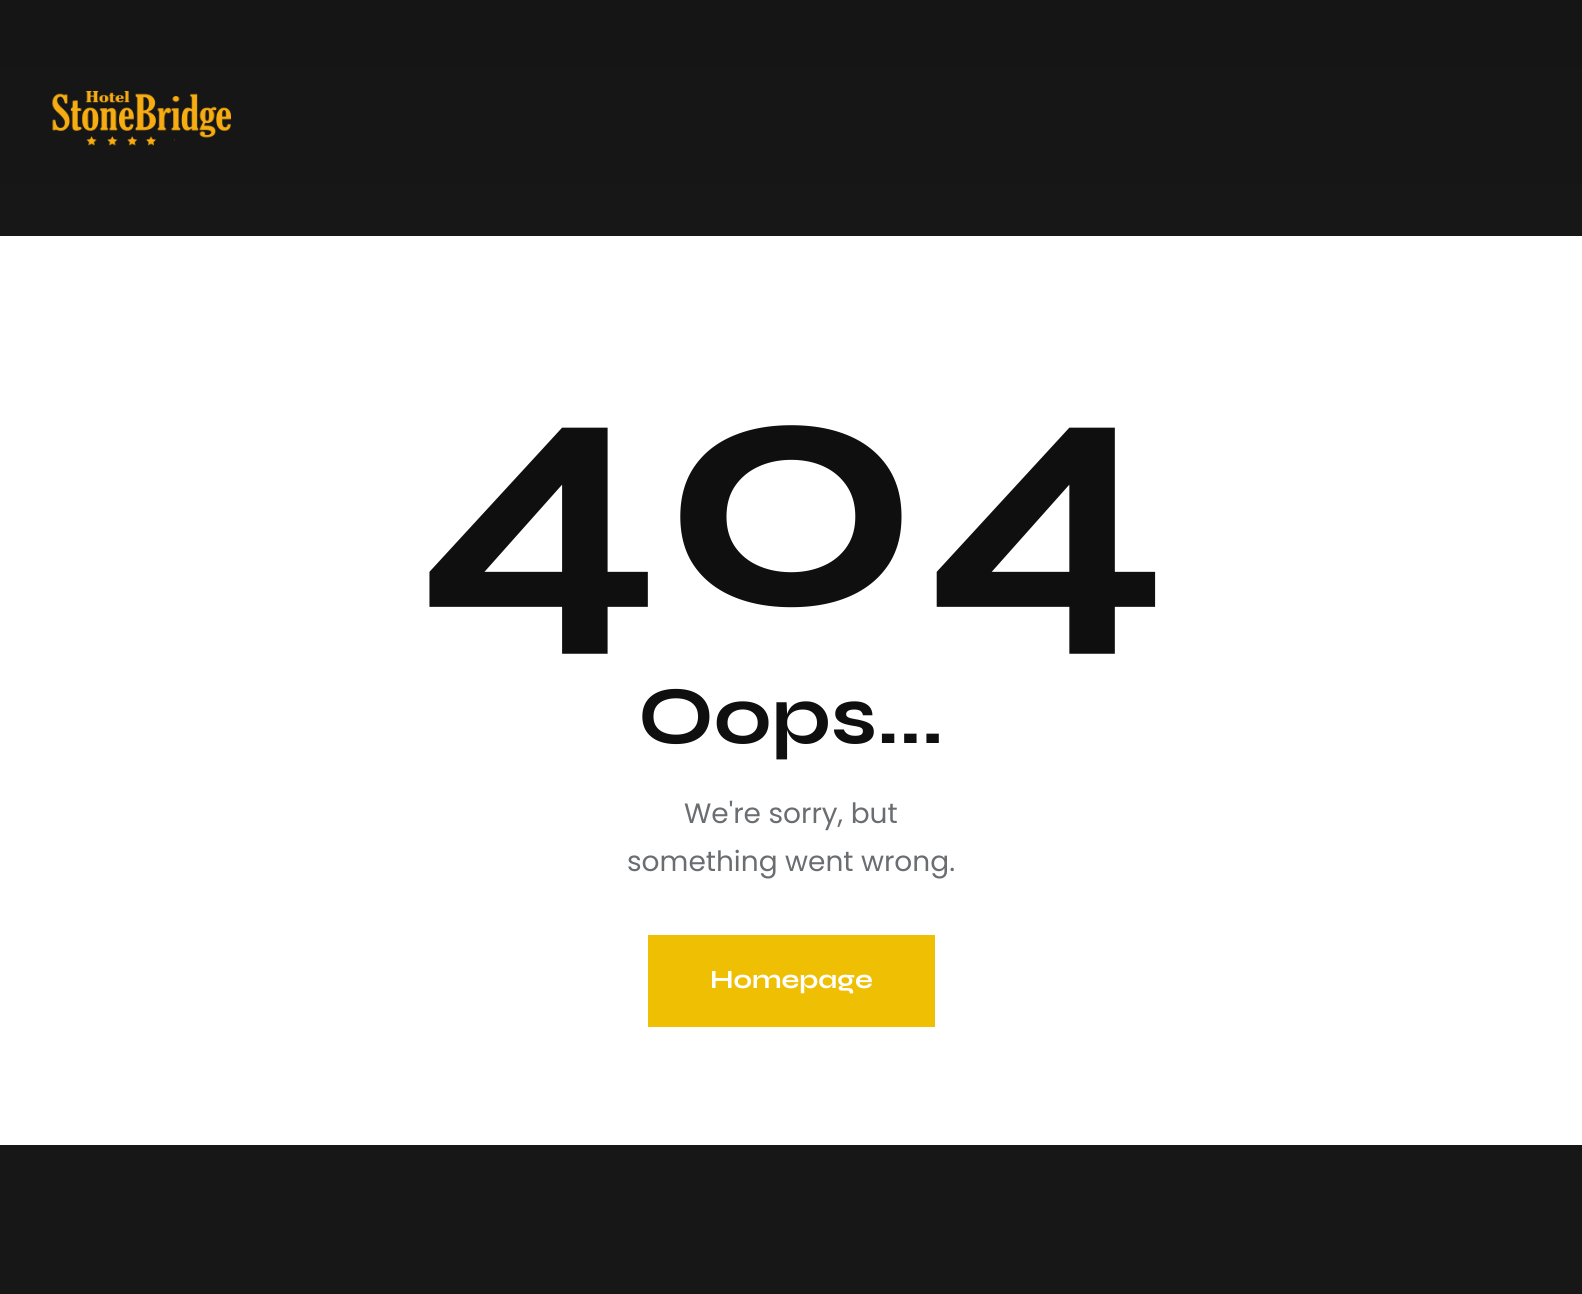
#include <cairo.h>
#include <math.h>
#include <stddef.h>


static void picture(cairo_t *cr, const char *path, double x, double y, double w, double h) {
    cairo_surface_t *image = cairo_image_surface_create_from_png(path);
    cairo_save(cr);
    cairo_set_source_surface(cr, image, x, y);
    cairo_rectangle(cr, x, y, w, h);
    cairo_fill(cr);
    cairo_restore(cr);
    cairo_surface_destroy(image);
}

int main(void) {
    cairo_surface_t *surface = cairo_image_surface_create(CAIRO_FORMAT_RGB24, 1582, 1294);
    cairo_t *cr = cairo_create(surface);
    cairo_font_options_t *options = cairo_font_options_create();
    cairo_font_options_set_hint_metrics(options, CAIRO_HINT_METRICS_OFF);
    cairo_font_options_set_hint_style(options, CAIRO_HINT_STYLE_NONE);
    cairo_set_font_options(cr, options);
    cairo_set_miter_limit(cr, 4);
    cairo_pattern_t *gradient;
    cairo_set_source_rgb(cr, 1, 1, 1);
    cairo_paint(cr);
    gradient = cairo_pattern_create_linear(791, 0, 791, 236);
    cairo_pattern_add_color_stop_rgba(gradient, 0, 0.082, 0.082, 0.082, 1);
    cairo_pattern_add_color_stop_rgba(gradient, 1, 0.09, 0.09, 0.09, 1);
    cairo_set_source(cr, gradient);
    cairo_pattern_destroy(gradient);
    cairo_rectangle(cr, 0, 0, 1582, 236);
    cairo_fill(cr);
    picture(cr, "img1.png", 52, 91, 179, 55);
    cairo_select_font_face(cr, "Syne", CAIRO_FONT_SLANT_NORMAL, CAIRO_FONT_WEIGHT_BOLD);
    cairo_set_font_size(cr, 350);
    cairo_set_source_rgb(cr, 0.059, 0.059, 0.059);
    cairo_move_to(cr, 413, 603);
    cairo_show_text(cr, "404");
    cairo_set_font_size(cr, 82);
    cairo_move_to(cr, 638, 743);
    cairo_show_text(cr, "Oops...");
    cairo_select_font_face(cr, "Poppins", CAIRO_FONT_SLANT_NORMAL, CAIRO_FONT_WEIGHT_NORMAL);
    cairo_set_font_size(cr, 28);
    cairo_set_source_rgb(cr, 0.416, 0.431, 0.443);
    cairo_move_to(cr, 684, 823);
    cairo_show_text(cr, "We're sorry, but");
    cairo_move_to(cr, 627, 871);
    cairo_show_text(cr, "something went wrong.");
    cairo_set_source_rgb(cr, 0.937, 0.749, 0.016);
    cairo_rectangle(cr, 648, 935, 287, 92);
    cairo_fill(cr);
    cairo_select_font_face(cr, "Syne", CAIRO_FONT_SLANT_NORMAL, CAIRO_FONT_WEIGHT_BOLD);
    cairo_set_font_size(cr, 26.25);
    cairo_set_source_rgb(cr, 1, 1, 1);
    cairo_move_to(cr, 710, 988);
    cairo_show_text(cr, "Homepage");
    cairo_set_source_rgb(cr, 0.09, 0.09, 0.09);
    cairo_rectangle(cr, 0, 1145, 1582, 149);
    cairo_fill(cr);
    cairo_surface_write_to_png(surface, "page.png");
    cairo_font_options_destroy(options);
    cairo_destroy(cr);
    cairo_surface_destroy(surface);
    return 0;
}
